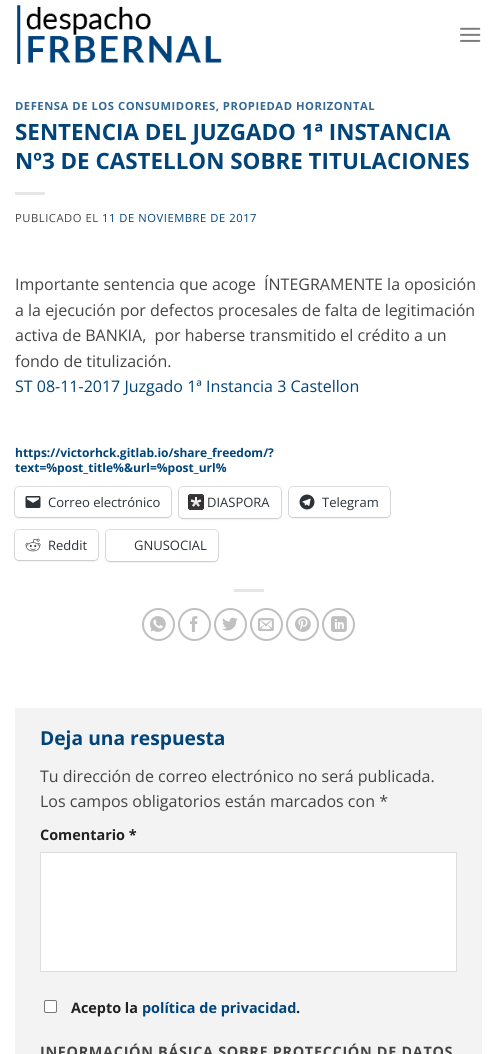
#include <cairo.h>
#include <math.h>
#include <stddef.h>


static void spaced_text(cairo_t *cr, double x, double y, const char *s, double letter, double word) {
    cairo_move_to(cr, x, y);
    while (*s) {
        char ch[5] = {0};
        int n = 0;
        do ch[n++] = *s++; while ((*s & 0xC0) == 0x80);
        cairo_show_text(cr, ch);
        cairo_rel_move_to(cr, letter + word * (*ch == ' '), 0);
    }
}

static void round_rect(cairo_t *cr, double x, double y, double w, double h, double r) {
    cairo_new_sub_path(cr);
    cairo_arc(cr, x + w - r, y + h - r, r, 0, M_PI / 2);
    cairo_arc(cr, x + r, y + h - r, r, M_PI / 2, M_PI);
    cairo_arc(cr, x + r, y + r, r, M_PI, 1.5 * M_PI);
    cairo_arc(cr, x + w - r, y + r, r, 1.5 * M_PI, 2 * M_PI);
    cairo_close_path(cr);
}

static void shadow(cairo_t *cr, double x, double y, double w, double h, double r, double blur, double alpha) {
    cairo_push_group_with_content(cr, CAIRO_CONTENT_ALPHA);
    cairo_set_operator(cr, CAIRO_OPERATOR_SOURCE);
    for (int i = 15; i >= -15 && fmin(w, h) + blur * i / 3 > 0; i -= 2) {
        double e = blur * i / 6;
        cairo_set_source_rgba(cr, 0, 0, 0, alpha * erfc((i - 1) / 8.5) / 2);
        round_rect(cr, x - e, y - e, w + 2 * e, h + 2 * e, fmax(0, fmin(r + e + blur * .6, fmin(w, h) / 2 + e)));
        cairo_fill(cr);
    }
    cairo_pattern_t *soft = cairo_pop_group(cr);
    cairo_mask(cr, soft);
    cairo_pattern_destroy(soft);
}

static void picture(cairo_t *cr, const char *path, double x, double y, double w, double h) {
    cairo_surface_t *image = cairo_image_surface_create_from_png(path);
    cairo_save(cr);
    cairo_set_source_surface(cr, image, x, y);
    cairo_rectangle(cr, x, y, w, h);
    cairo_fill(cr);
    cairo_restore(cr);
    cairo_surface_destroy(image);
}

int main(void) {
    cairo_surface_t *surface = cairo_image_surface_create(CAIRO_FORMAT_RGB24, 497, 1054);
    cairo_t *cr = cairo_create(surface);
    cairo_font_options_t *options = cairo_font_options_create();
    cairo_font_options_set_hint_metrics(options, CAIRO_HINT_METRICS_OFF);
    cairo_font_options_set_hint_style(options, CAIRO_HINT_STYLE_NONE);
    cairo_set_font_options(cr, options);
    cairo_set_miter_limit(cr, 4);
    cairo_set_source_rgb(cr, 1, 1, 1);
    cairo_paint(cr);
    picture(cr, "img1.png", 17, 5, 205, 59);
    picture(cr, "img2.png", 460, 27, 21, 15);
    cairo_select_font_face(cr, "Open Sans", CAIRO_FONT_SLANT_NORMAL, CAIRO_FONT_WEIGHT_BOLD);
    cairo_set_font_size(cr, 11.2);
    cairo_set_source_rgb(cr, 0.204, 0.412, 0.58);
    spaced_text(cr, 15, 110, "DEFENSA DE LOS CONSUMIDORES, PROPIEDAD HORIZONTAL", 0.55, 0);
    cairo_set_font_size(cr, 22.4);
    cairo_set_source_rgb(cr, 0.004, 0.267, 0.475);
    cairo_move_to(cr, 15, 140);
    cairo_show_text(cr, "SENTENCIA DEL JUZGADO 1ª INSTANCIA");
    cairo_move_to(cr, 15, 169);
    cairo_show_text(cr, "Nº3 DE CASTELLON SOBRE TITULACIONES");
    cairo_set_source_rgb(cr, 0.902, 0.902, 0.902);
    cairo_rectangle(cr, 15, 192, 30, 3);
    cairo_fill(cr);
    cairo_select_font_face(cr, "Open Sans", CAIRO_FONT_SLANT_NORMAL, CAIRO_FONT_WEIGHT_NORMAL);
    cairo_set_font_size(cr, 11.2);
    cairo_set_source_rgb(cr, 0.267, 0.267, 0.267);
    spaced_text(cr, 15, 222, "PUBLICADO EL", 0.55, 0);
    cairo_set_source_rgb(cr, 0.004, 0.267, 0.475);
    spaced_text(cr, 102, 222, "11 DE NOVIEMBRE DE 2017", 0.55, 0);
    cairo_set_font_size(cr, 16);
    cairo_set_source_rgb(cr, 0.267, 0.267, 0.267);
    cairo_move_to(cr, 15, 290);
    cairo_show_text(cr, "Importante sentencia que acoge  ÍNTEGRAMENTE la oposición");
    cairo_move_to(cr, 15, 316);
    cairo_show_text(cr, "a la ejecución por defectos procesales de falta de legitimación");
    cairo_move_to(cr, 15, 341);
    cairo_show_text(cr, "activa de BANKIA,  por haberse transmitido el crédito a un");
    cairo_move_to(cr, 15, 367);
    cairo_show_text(cr, "fondo de titulización.");
    cairo_set_source_rgb(cr, 0.004, 0.267, 0.475);
    cairo_move_to(cr, 15, 392);
    cairo_show_text(cr, "ST 08-11-2017 Juzgado 1ª Instancia 3 Castellon");
    cairo_select_font_face(cr, "Open Sans", CAIRO_FONT_SLANT_NORMAL, CAIRO_FONT_WEIGHT_BOLD);
    cairo_set_font_size(cr, 12);
    cairo_move_to(cr, 15, 457);
    cairo_show_text(cr, "https://victorhck.gitlab.io/share_freedom/?");
    cairo_move_to(cr, 15, 472);
    cairo_show_text(cr, "text=%post_title%&url=%post_url%");
    round_rect(cr, 14.5, 486.5, 157, 31, 4.5);
    cairo_set_source_rgb(cr, 0.878, 0.878, 0.878);
    cairo_set_line_width(cr, 1);
    cairo_stroke(cr);
    cairo_set_source_rgb(cr, 0, 0, 0);
    shadow(cr, 15, 488, 156, 30, 4, 1, 0.12);
    cairo_set_source_rgb(cr, 1, 1, 1);
    round_rect(cr, 15, 487, 156, 30, 4);
    cairo_fill(cr);
    picture(cr, "img3.png", 25, 496, 16, 12);
    cairo_select_font_face(cr, "Open Sans", CAIRO_FONT_SLANT_NORMAL, CAIRO_FONT_WEIGHT_NORMAL);
    cairo_set_font_size(cr, 13);
    cairo_set_source_rgb(cr, 0.173, 0.2, 0.22);
    cairo_move_to(cr, 48, 507);
    cairo_show_text(cr, "Correo electrónico");
    round_rect(cr, 178.5, 486.5, 103, 32, 4.5);
    cairo_set_source_rgb(cr, 0.878, 0.878, 0.878);
    cairo_stroke(cr);
    cairo_set_source_rgb(cr, 0, 0, 0);
    shadow(cr, 179, 488, 102, 31, 4, 1, 0.12);
    cairo_set_source_rgb(cr, 1, 1, 1);
    round_rect(cr, 179, 487, 102, 31, 4);
    cairo_fill(cr);
    picture(cr, "img4.png", 188, 494, 16, 16);
    cairo_set_source_rgb(cr, 0.173, 0.2, 0.22);
    cairo_move_to(cr, 207, 507);
    cairo_show_text(cr, "DIASPORA");
    round_rect(cr, 288.5, 486.5, 102, 31, 4.5);
    cairo_set_source_rgb(cr, 0.878, 0.878, 0.878);
    cairo_stroke(cr);
    cairo_set_source_rgb(cr, 0, 0, 0);
    shadow(cr, 289, 488, 101, 30, 4, 1, 0.12);
    cairo_set_source_rgb(cr, 1, 1, 1);
    round_rect(cr, 289, 487, 101, 30, 4);
    cairo_fill(cr);
    picture(cr, "img5.png", 299, 494, 16, 16);
    cairo_set_source_rgb(cr, 0.173, 0.2, 0.22);
    cairo_move_to(cr, 322, 507);
    cairo_show_text(cr, "Telegram");
    round_rect(cr, 14.5, 529.5, 84, 31, 4.5);
    cairo_set_source_rgb(cr, 0.878, 0.878, 0.878);
    cairo_stroke(cr);
    cairo_set_source_rgb(cr, 0, 0, 0);
    shadow(cr, 15, 531, 83, 30, 4, 1, 0.12);
    cairo_set_source_rgb(cr, 1, 1, 1);
    round_rect(cr, 15, 530, 83, 30, 4);
    cairo_fill(cr);
    picture(cr, "img6.png", 25, 538, 16, 14);
    cairo_set_source_rgb(cr, 0.173, 0.2, 0.22);
    cairo_move_to(cr, 48, 550);
    cairo_show_text(cr, "Reddit");
    round_rect(cr, 105.5, 529.5, 113, 32, 4.5);
    cairo_set_source_rgb(cr, 0.878, 0.878, 0.878);
    cairo_stroke(cr);
    cairo_set_source_rgb(cr, 0, 0, 0);
    shadow(cr, 106, 531, 112, 31, 4, 1, 0.12);
    cairo_set_source_rgb(cr, 1, 1, 1);
    round_rect(cr, 106, 530, 112, 31, 4);
    cairo_fill(cr);
    cairo_set_source_rgb(cr, 0.173, 0.2, 0.22);
    cairo_move_to(cr, 134, 550);
    cairo_show_text(cr, "GNUSOCIAL");
    cairo_set_source_rgb(cr, 0.902, 0.902, 0.902);
    cairo_rectangle(cr, 234, 589, 30, 3);
    cairo_fill(cr);
    cairo_arc(cr, 158.5, 624.5, 15.5, 0, 2 * M_PI);
    cairo_set_source_rgb(cr, 0.753, 0.753, 0.753);
    cairo_set_line_width(cr, 2);
    cairo_stroke(cr);
    picture(cr, "img7.png", 150, 616, 16, 16);
    cairo_arc(cr, 194.5, 624.5, 15.5, 0, 2 * M_PI);
    cairo_stroke(cr);
    picture(cr, "img8.png", 190, 616, 8, 16);
    cairo_arc(cr, 230.5, 624.5, 15.5, 0, 2 * M_PI);
    cairo_stroke(cr);
    picture(cr, "img9.png", 222, 617, 16, 14);
    cairo_arc(cr, 266.5, 624.5, 15.5, 0, 2 * M_PI);
    cairo_stroke(cr);
    picture(cr, "img10.png", 258, 618, 16, 13);
    cairo_arc(cr, 302.5, 624.5, 15.5, 0, 2 * M_PI);
    cairo_stroke(cr);
    picture(cr, "img11.png", 295, 616, 16, 16);
    cairo_arc(cr, 338.5, 624.5, 15.5, 0, 2 * M_PI);
    cairo_stroke(cr);
    picture(cr, "img12.png", 331, 616, 16, 16);
    cairo_set_source_rgb(cr, 0.953, 0.953, 0.953);
    cairo_rectangle(cr, 15, 708, 467, 346);
    cairo_fill(cr);
    cairo_select_font_face(cr, "Open Sans", CAIRO_FONT_SLANT_NORMAL, CAIRO_FONT_WEIGHT_BOLD);
    cairo_set_font_size(cr, 19.25);
    cairo_set_source_rgb(cr, 0.004, 0.267, 0.475);
    cairo_move_to(cr, 40, 745);
    cairo_show_text(cr, "Deja una respuesta");
    cairo_select_font_face(cr, "Open Sans", CAIRO_FONT_SLANT_NORMAL, CAIRO_FONT_WEIGHT_NORMAL);
    cairo_set_font_size(cr, 16);
    cairo_set_source_rgb(cr, 0.267, 0.267, 0.267);
    cairo_move_to(cr, 40, 782);
    cairo_show_text(cr, "Tu dirección de correo electrónico no será publicada.");
    cairo_move_to(cr, 40, 807);
    cairo_show_text(cr, "Los campos obligatorios están marcados con *");
    cairo_select_font_face(cr, "Open Sans", CAIRO_FONT_SLANT_NORMAL, CAIRO_FONT_WEIGHT_BOLD);
    cairo_set_font_size(cr, 14.4);
    cairo_set_source_rgb(cr, 0.133, 0.133, 0.133);
    cairo_move_to(cr, 40, 840);
    cairo_show_text(cr, "Comentario *");
    cairo_set_source_rgb(cr, 1, 1, 1);
    cairo_rectangle(cr, 40.5, 852.5, 416, 119);
    cairo_fill_preserve(cr);
    cairo_set_source_rgb(cr, 0.867, 0.867, 0.867);
    cairo_set_line_width(cr, 1);
    cairo_stroke(cr);
    cairo_set_source_rgb(cr, 1, 1, 1);
    round_rect(cr, 44.5, 1000.5, 12, 12, 1.5);
    cairo_fill_preserve(cr);
    cairo_set_source_rgb(cr, 0.463, 0.463, 0.463);
    cairo_stroke(cr);
    cairo_set_source_rgb(cr, 0.133, 0.133, 0.133);
    cairo_move_to(cr, 71, 1013);
    cairo_show_text(cr, "Acepto la");
    cairo_set_source_rgb(cr, 0.004, 0.267, 0.475);
    cairo_move_to(cr, 142, 1013);
    cairo_show_text(cr, "política de privacidad");
    cairo_set_source_rgb(cr, 0.133, 0.133, 0.133);
    cairo_move_to(cr, 296, 1013);
    cairo_show_text(cr, ".");
    cairo_set_source_rgb(cr, 0.267, 0.267, 0.267);
    spaced_text(cr, 40, 1057, "INFORMACIÓN BÁSICA SOBRE PROTECCIÓN DE DATOS", 0.7, 0);
    cairo_surface_write_to_png(surface, "page.png");
    cairo_font_options_destroy(options);
    cairo_destroy(cr);
    cairo_surface_destroy(surface);
    return 0;
}
